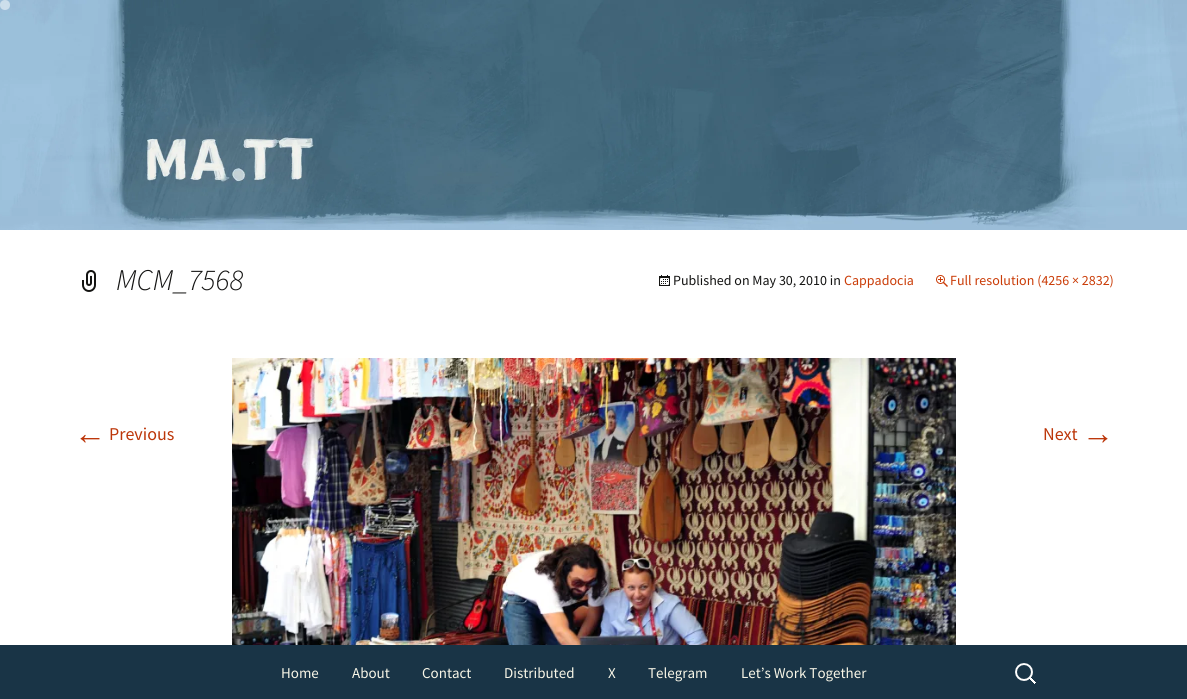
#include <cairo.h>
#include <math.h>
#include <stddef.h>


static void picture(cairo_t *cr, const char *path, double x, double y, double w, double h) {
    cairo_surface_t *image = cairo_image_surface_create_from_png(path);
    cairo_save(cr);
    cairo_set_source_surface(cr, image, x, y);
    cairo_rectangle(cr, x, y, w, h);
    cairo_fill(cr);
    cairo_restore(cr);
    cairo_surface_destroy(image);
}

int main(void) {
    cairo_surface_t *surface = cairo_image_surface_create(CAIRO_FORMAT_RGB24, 1187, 699);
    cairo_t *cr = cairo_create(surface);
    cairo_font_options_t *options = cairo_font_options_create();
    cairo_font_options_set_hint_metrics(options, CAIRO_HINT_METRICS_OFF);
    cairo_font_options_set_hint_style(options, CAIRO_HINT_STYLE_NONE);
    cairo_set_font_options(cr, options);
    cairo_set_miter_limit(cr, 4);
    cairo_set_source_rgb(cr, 1, 1, 1);
    cairo_paint(cr);
    picture(cr, "img1.png", 0, 0, 1187, 230);
    cairo_set_source_rgba(cr, 1, 1, 1, 0.5);
    cairo_arc(cr, 5, 5, 5, 0, 2 * M_PI);
    cairo_fill(cr);
    picture(cr, "img2.png", 82, 270, 14, 22);
    cairo_select_font_face(cr, "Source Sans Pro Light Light", CAIRO_FONT_SLANT_ITALIC, CAIRO_FONT_WEIGHT_NORMAL);
    cairo_set_font_size(cr, 30);
    cairo_set_source_rgb(cr, 0.078, 0.078, 0.071);
    cairo_move_to(cr, 116, 290);
    cairo_show_text(cr, "MCM_7568");
    picture(cr, "img3.png", 659, 275, 11, 11);
    cairo_select_font_face(cr, "Source Sans Pro", CAIRO_FONT_SLANT_NORMAL, CAIRO_FONT_WEIGHT_NORMAL);
    cairo_set_font_size(cr, 14);
    cairo_move_to(cr, 673, 285);
    cairo_show_text(cr, "Published on May 30, 2010 in");
    cairo_set_source_rgb(cr, 0.792, 0.235, 0.031);
    cairo_move_to(cr, 844, 285);
    cairo_show_text(cr, "Cappadocia");
    picture(cr, "img4.png", 936, 275, 12, 12);
    cairo_move_to(cr, 950, 285);
    cairo_show_text(cr, "Full resolution (4256 × 2832)");
    picture(cr, "img5.png", 232, 358, 724, 287);
    cairo_select_font_face(cr, "Liberation Sans", CAIRO_FONT_SLANT_NORMAL, CAIRO_FONT_WEIGHT_NORMAL);
    cairo_set_font_size(cr, 32);
    cairo_set_source_rgb(cr, 0.737, 0.212, 0.039);
    cairo_move_to(cr, 74, 444);
    cairo_show_text(cr, "←");
    cairo_select_font_face(cr, "Source Sans Pro", CAIRO_FONT_SLANT_NORMAL, CAIRO_FONT_WEIGHT_NORMAL);
    cairo_set_font_size(cr, 18);
    cairo_move_to(cr, 109, 440);
    cairo_show_text(cr, "Previous");
    cairo_move_to(cr, 1043, 440);
    cairo_show_text(cr, "Next");
    cairo_select_font_face(cr, "Liberation Sans", CAIRO_FONT_SLANT_NORMAL, CAIRO_FONT_WEIGHT_NORMAL);
    cairo_set_font_size(cr, 32);
    cairo_move_to(cr, 1082, 444);
    cairo_show_text(cr, "→");
    cairo_set_source_rgb(cr, 0.098, 0.204, 0.275);
    cairo_rectangle(cr, 0, 645, 1187, 54);
    cairo_fill(cr);
    cairo_select_font_face(cr, "Source Sans Pro", CAIRO_FONT_SLANT_NORMAL, CAIRO_FONT_WEIGHT_NORMAL);
    cairo_set_font_size(cr, 15);
    cairo_set_source_rgb(cr, 0.969, 0.961, 0.906);
    cairo_move_to(cr, 281, 678);
    cairo_show_text(cr, "Home");
    cairo_move_to(cr, 352, 678);
    cairo_show_text(cr, "About");
    cairo_move_to(cr, 422, 678);
    cairo_show_text(cr, "Contact");
    cairo_move_to(cr, 504, 678);
    cairo_show_text(cr, "Distributed");
    cairo_move_to(cr, 608, 678);
    cairo_show_text(cr, "X");
    cairo_move_to(cr, 648, 678);
    cairo_show_text(cr, "Telegram");
    cairo_move_to(cr, 741, 678);
    cairo_show_text(cr, "Let’s Work Together");
    picture(cr, "img6.png", 1015, 663, 21, 21);
    cairo_surface_write_to_png(surface, "page.png");
    cairo_font_options_destroy(options);
    cairo_destroy(cr);
    cairo_surface_destroy(surface);
    return 0;
}
